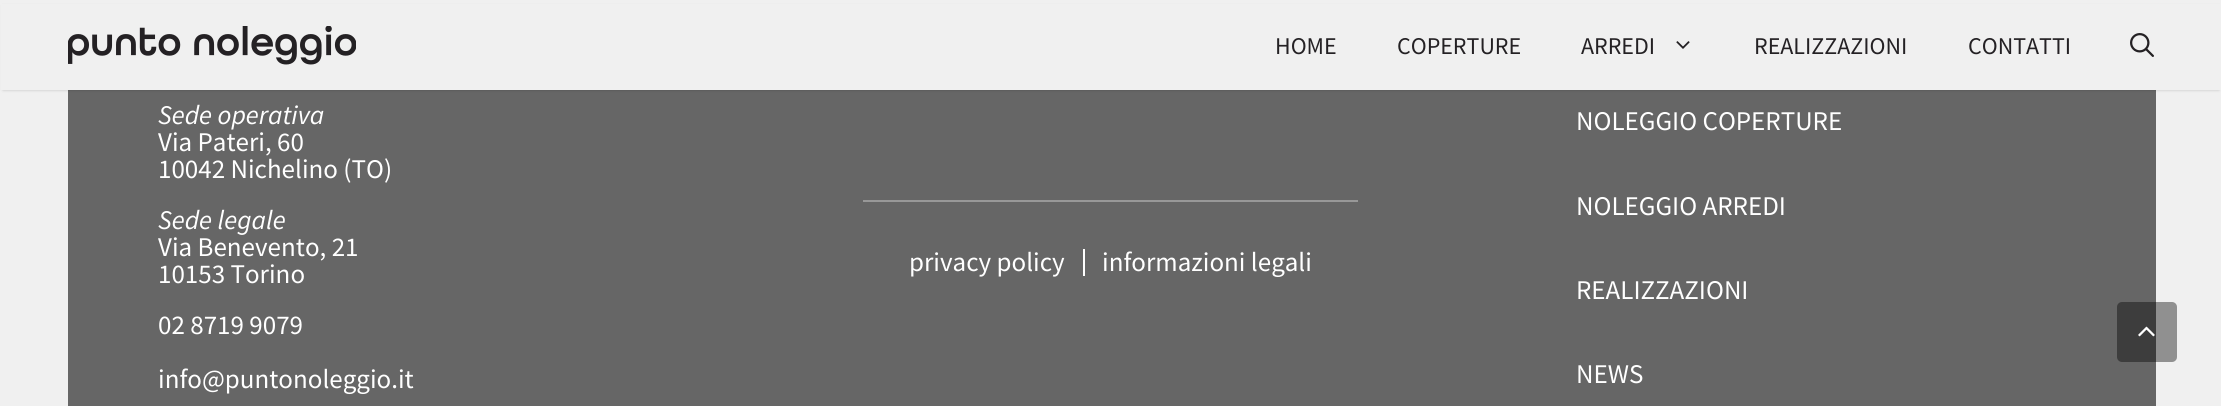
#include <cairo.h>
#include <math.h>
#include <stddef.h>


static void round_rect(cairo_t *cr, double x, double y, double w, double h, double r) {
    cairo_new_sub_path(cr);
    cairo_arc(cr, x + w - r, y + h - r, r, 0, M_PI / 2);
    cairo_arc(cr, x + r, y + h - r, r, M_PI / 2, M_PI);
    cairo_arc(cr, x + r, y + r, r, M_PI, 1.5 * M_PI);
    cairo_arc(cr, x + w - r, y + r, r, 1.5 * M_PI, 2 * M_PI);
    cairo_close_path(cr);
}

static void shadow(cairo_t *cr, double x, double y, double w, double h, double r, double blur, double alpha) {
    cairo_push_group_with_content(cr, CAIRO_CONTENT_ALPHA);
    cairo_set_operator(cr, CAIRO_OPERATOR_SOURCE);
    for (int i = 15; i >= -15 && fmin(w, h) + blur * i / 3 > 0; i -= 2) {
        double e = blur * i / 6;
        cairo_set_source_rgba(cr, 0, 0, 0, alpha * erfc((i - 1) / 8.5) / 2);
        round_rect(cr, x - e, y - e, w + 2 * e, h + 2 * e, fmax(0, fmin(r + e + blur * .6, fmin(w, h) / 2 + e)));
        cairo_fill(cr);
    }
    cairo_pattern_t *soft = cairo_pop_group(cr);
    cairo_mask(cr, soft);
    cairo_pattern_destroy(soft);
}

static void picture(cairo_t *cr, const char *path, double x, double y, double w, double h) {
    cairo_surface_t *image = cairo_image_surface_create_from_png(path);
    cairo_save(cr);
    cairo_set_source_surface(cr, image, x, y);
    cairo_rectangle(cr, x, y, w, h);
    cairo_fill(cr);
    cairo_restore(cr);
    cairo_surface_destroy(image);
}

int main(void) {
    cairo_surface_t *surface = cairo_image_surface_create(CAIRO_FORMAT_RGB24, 2221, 406);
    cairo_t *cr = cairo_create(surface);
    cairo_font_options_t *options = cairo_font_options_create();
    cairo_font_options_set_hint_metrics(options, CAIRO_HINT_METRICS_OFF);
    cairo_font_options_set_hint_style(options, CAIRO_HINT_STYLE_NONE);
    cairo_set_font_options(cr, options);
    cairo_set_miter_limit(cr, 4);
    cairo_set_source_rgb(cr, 0.941, 0.941, 0.941);
    cairo_paint(cr);
    cairo_set_source_rgb(cr, 0.4, 0.4, 0.4);
    cairo_rectangle(cr, 68, 90, 2088, 316);
    cairo_fill(cr);
    cairo_set_source_rgb(cr, 0, 0, 0);
    shadow(cr, 3, 6, 2216, 84, 0, 1.5, 0.2);
    cairo_set_source_rgb(cr, 0.941, 0.941, 0.941);
    cairo_rectangle(cr, 1, 4, 2220, 86);
    cairo_fill(cr);
    picture(cr, "img1.png", 68, 26, 288, 39);
    cairo_select_font_face(cr, "Source Sans Pro", CAIRO_FONT_SLANT_NORMAL, CAIRO_FONT_WEIGHT_NORMAL);
    cairo_set_font_size(cr, 24);
    cairo_set_source_rgb(cr, 0.141, 0.129, 0.141);
    cairo_move_to(cr, 1275, 54);
    cairo_show_text(cr, "HOME");
    cairo_move_to(cr, 1397, 54);
    cairo_show_text(cr, "COPERTURE");
    cairo_move_to(cr, 1581, 54);
    cairo_show_text(cr, "ARREDI");
    picture(cr, "img2.png", 1676, 41, 14, 8);
    cairo_move_to(cr, 1754, 54);
    cairo_show_text(cr, "REALIZZAZIONI");
    cairo_move_to(cr, 1968, 54);
    cairo_show_text(cr, "CONTATTI");
    picture(cr, "img3.png", 2130, 33, 24, 24);
    cairo_select_font_face(cr, "Source Sans Pro", CAIRO_FONT_SLANT_ITALIC, CAIRO_FONT_WEIGHT_NORMAL);
    cairo_set_font_size(cr, 27);
    cairo_set_source_rgb(cr, 1, 1, 1);
    cairo_move_to(cr, 158, 124);
    cairo_show_text(cr, "Sede operativa");
    cairo_select_font_face(cr, "Source Sans Pro", CAIRO_FONT_SLANT_NORMAL, CAIRO_FONT_WEIGHT_NORMAL);
    cairo_move_to(cr, 158, 151);
    cairo_show_text(cr, "Via Pateri, 60");
    cairo_move_to(cr, 158, 178);
    cairo_show_text(cr, "10042 Nichelino (TO)");
    cairo_select_font_face(cr, "Source Sans Pro", CAIRO_FONT_SLANT_ITALIC, CAIRO_FONT_WEIGHT_NORMAL);
    cairo_move_to(cr, 158, 229);
    cairo_show_text(cr, "Sede legale");
    cairo_select_font_face(cr, "Source Sans Pro", CAIRO_FONT_SLANT_NORMAL, CAIRO_FONT_WEIGHT_NORMAL);
    cairo_move_to(cr, 158, 256);
    cairo_show_text(cr, "Via Benevento, 21");
    cairo_move_to(cr, 158, 283);
    cairo_show_text(cr, "10153 Torino");
    cairo_move_to(cr, 158, 334);
    cairo_show_text(cr, "02 8719 9079");
    cairo_move_to(cr, 158, 388);
    cairo_show_text(cr, "info@puntonoleggio.it");
    cairo_set_source_rgb(cr, 0.596, 0.596, 0.596);
    cairo_rectangle(cr, 863, 200, 495, 2);
    cairo_fill(cr);
    cairo_set_source_rgb(cr, 1, 1, 1);
    cairo_rectangle(cr, 1083, 249, 2, 27);
    cairo_fill(cr);
    cairo_move_to(cr, 909, 271);
    cairo_show_text(cr, "privacy policy");
    cairo_move_to(cr, 1102, 271);
    cairo_show_text(cr, "informazioni legali");
    cairo_move_to(cr, 1576, 130);
    cairo_show_text(cr, "NOLEGGIO COPERTURE");
    cairo_move_to(cr, 1576, 215);
    cairo_show_text(cr, "NOLEGGIO ARREDI");
    cairo_move_to(cr, 1576, 299);
    cairo_show_text(cr, "REALIZZAZIONI");
    cairo_move_to(cr, 1576, 383);
    cairo_show_text(cr, "NEWS");
    cairo_set_source_rgba(cr, 0, 0, 0, 0.4);
    round_rect(cr, 2117, 302, 60, 60, 5);
    cairo_fill(cr);
    picture(cr, "img4.png", 2138, 326, 17, 11);
    cairo_surface_write_to_png(surface, "page.png");
    cairo_font_options_destroy(options);
    cairo_destroy(cr);
    cairo_surface_destroy(surface);
    return 0;
}
